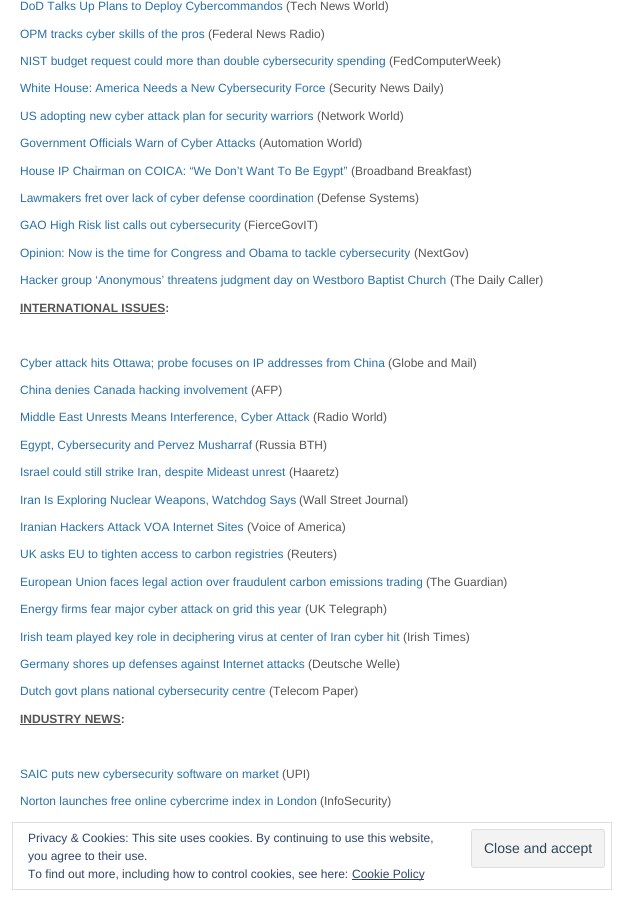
#include <cairo.h>
#include <math.h>
#include <stddef.h>


static void round_rect(cairo_t *cr, double x, double y, double w, double h, double r) {
    cairo_new_sub_path(cr);
    cairo_arc(cr, x + w - r, y + h - r, r, 0, M_PI / 2);
    cairo_arc(cr, x + r, y + h - r, r, M_PI / 2, M_PI);
    cairo_arc(cr, x + r, y + r, r, M_PI, 1.5 * M_PI);
    cairo_arc(cr, x + w - r, y + r, r, 1.5 * M_PI, 2 * M_PI);
    cairo_close_path(cr);
}

int main(void) {
    cairo_surface_t *surface = cairo_image_surface_create(CAIRO_FORMAT_RGB24, 624, 902);
    cairo_t *cr = cairo_create(surface);
    cairo_font_options_t *options = cairo_font_options_create();
    cairo_font_options_set_hint_metrics(options, CAIRO_HINT_METRICS_OFF);
    cairo_font_options_set_hint_style(options, CAIRO_HINT_STYLE_NONE);
    cairo_set_font_options(cr, options);
    cairo_set_miter_limit(cr, 4);
    cairo_set_source_rgb(cr, 1, 1, 1);
    cairo_paint(cr);
    cairo_select_font_face(cr, "Liberation Sans", CAIRO_FONT_SLANT_NORMAL, CAIRO_FONT_WEIGHT_NORMAL);
    cairo_set_font_size(cr, 12);
    cairo_set_source_rgb(cr, 0.161, 0.439, 0.651);
    cairo_move_to(cr, 20, 10);
    cairo_show_text(cr, "DoD Talks Up Plans to Deploy Cybercommandos");
    cairo_set_source_rgb(cr, 0.333, 0.333, 0.333);
    cairo_move_to(cr, 286, 10);
    cairo_show_text(cr, "(Tech News World)");
    cairo_set_source_rgb(cr, 0.161, 0.439, 0.651);
    cairo_move_to(cr, 20, 38);
    cairo_show_text(cr, "OPM tracks cyber skills of the pros");
    cairo_set_source_rgb(cr, 0.333, 0.333, 0.333);
    cairo_move_to(cr, 208, 38);
    cairo_show_text(cr, "(Federal News Radio)");
    cairo_set_source_rgb(cr, 0.161, 0.439, 0.651);
    cairo_move_to(cr, 20, 65);
    cairo_show_text(cr, "NIST budget request could more than double cybersecurity spending");
    cairo_set_source_rgb(cr, 0.333, 0.333, 0.333);
    cairo_move_to(cr, 389, 65);
    cairo_show_text(cr, "(FedComputerWeek)");
    cairo_set_source_rgb(cr, 0.161, 0.439, 0.651);
    cairo_move_to(cr, 20, 92);
    cairo_show_text(cr, "White House: America Needs a New Cybersecurity Force");
    cairo_set_source_rgb(cr, 0.333, 0.333, 0.333);
    cairo_move_to(cr, 329, 92);
    cairo_show_text(cr, "(Security News Daily)");
    cairo_set_source_rgb(cr, 0.161, 0.439, 0.651);
    cairo_move_to(cr, 20, 120);
    cairo_show_text(cr, "US adopting new cyber attack plan for security warriors");
    cairo_set_source_rgb(cr, 0.333, 0.333, 0.333);
    cairo_move_to(cr, 317, 120);
    cairo_show_text(cr, "(Network World)");
    cairo_set_source_rgb(cr, 0.161, 0.439, 0.651);
    cairo_move_to(cr, 20, 147);
    cairo_show_text(cr, "Government Officials Warn of Cyber Attacks");
    cairo_set_source_rgb(cr, 0.333, 0.333, 0.333);
    cairo_move_to(cr, 259, 147);
    cairo_show_text(cr, "(Automation World)");
    cairo_set_source_rgb(cr, 0.161, 0.439, 0.651);
    cairo_move_to(cr, 20, 175);
    cairo_show_text(cr, "House IP Chairman on COICA: “We Don’t Want To Be Egypt”");
    cairo_set_source_rgb(cr, 0.333, 0.333, 0.333);
    cairo_move_to(cr, 351, 175);
    cairo_show_text(cr, "(Broadband Breakfast)");
    cairo_set_source_rgb(cr, 0.161, 0.439, 0.651);
    cairo_move_to(cr, 20, 202);
    cairo_show_text(cr, "Lawmakers fret over lack of cyber defense coordination");
    cairo_set_source_rgb(cr, 0.333, 0.333, 0.333);
    cairo_move_to(cr, 317, 202);
    cairo_show_text(cr, "(Defense Systems)");
    cairo_set_source_rgb(cr, 0.161, 0.439, 0.651);
    cairo_move_to(cr, 20, 229);
    cairo_show_text(cr, "GAO High Risk list calls out cybersecurity");
    cairo_set_source_rgb(cr, 0.333, 0.333, 0.333);
    cairo_move_to(cr, 244, 229);
    cairo_show_text(cr, "(FierceGovIT)");
    cairo_set_source_rgb(cr, 0.161, 0.439, 0.651);
    cairo_move_to(cr, 20, 257);
    cairo_show_text(cr, "Opinion: Now is the time for Congress and Obama to tackle cybersecurity");
    cairo_set_source_rgb(cr, 0.333, 0.333, 0.333);
    cairo_move_to(cr, 414, 257);
    cairo_show_text(cr, "(NextGov)");
    cairo_set_source_rgb(cr, 0.161, 0.439, 0.651);
    cairo_move_to(cr, 20, 284);
    cairo_show_text(cr, "Hacker group ‘Anonymous’ threatens judgment day on Westboro Baptist Church");
    cairo_set_source_rgb(cr, 0.333, 0.333, 0.333);
    cairo_move_to(cr, 450, 284);
    cairo_show_text(cr, "(The Daily Caller)");
    cairo_select_font_face(cr, "Liberation Sans", CAIRO_FONT_SLANT_NORMAL, CAIRO_FONT_WEIGHT_BOLD);
    cairo_move_to(cr, 20, 312);
    cairo_show_text(cr, "INTERNATIONAL ISSUES:");
    cairo_rectangle(cr, 20, 313, 145, 1);
    cairo_fill(cr);
    cairo_select_font_face(cr, "Liberation Sans", CAIRO_FONT_SLANT_NORMAL, CAIRO_FONT_WEIGHT_NORMAL);
    cairo_set_source_rgb(cr, 0.161, 0.439, 0.651);
    cairo_move_to(cr, 20, 367);
    cairo_show_text(cr, "Cyber attack hits Ottawa; probe focuses on IP addresses from China");
    cairo_set_source_rgb(cr, 0.333, 0.333, 0.333);
    cairo_move_to(cr, 388, 367);
    cairo_show_text(cr, "(Globe and Mail)");
    cairo_set_source_rgb(cr, 0.161, 0.439, 0.651);
    cairo_move_to(cr, 20, 394);
    cairo_show_text(cr, "China denies Canada hacking involvement");
    cairo_set_source_rgb(cr, 0.333, 0.333, 0.333);
    cairo_move_to(cr, 251, 394);
    cairo_show_text(cr, "(AFP)");
    cairo_set_source_rgb(cr, 0.161, 0.439, 0.651);
    cairo_move_to(cr, 20, 421);
    cairo_show_text(cr, "Middle East Unrests Means Interference, Cyber Attack");
    cairo_set_source_rgb(cr, 0.333, 0.333, 0.333);
    cairo_move_to(cr, 313, 421);
    cairo_show_text(cr, "(Radio World)");
    cairo_set_source_rgb(cr, 0.161, 0.439, 0.651);
    cairo_move_to(cr, 20, 449);
    cairo_show_text(cr, "Egypt, Cybersecurity and Pervez Musharraf");
    cairo_set_source_rgb(cr, 0.333, 0.333, 0.333);
    cairo_move_to(cr, 255, 449);
    cairo_show_text(cr, "(Russia BTH)");
    cairo_set_source_rgb(cr, 0.161, 0.439, 0.651);
    cairo_move_to(cr, 20, 476);
    cairo_show_text(cr, "Israel could still strike Iran, despite Mideast unrest");
    cairo_set_source_rgb(cr, 0.333, 0.333, 0.333);
    cairo_move_to(cr, 289, 476);
    cairo_show_text(cr, "(Haaretz)");
    cairo_set_source_rgb(cr, 0.161, 0.439, 0.651);
    cairo_move_to(cr, 20, 504);
    cairo_show_text(cr, "Iran Is Exploring Nuclear Weapons, Watchdog Says");
    cairo_set_source_rgb(cr, 0.333, 0.333, 0.333);
    cairo_move_to(cr, 299, 504);
    cairo_show_text(cr, "(Wall Street Journal)");
    cairo_set_source_rgb(cr, 0.161, 0.439, 0.651);
    cairo_move_to(cr, 20, 531);
    cairo_show_text(cr, "Iranian Hackers Attack VOA Internet Sites");
    cairo_set_source_rgb(cr, 0.333, 0.333, 0.333);
    cairo_move_to(cr, 247, 531);
    cairo_show_text(cr, "(Voice of America)");
    cairo_set_source_rgb(cr, 0.161, 0.439, 0.651);
    cairo_move_to(cr, 20, 558);
    cairo_show_text(cr, "UK asks EU to tighten access to carbon registries");
    cairo_set_source_rgb(cr, 0.333, 0.333, 0.333);
    cairo_move_to(cr, 287, 558);
    cairo_show_text(cr, "(Reuters)");
    cairo_set_source_rgb(cr, 0.161, 0.439, 0.651);
    cairo_move_to(cr, 20, 586);
    cairo_show_text(cr, "European Union faces legal action over fraudulent carbon emissions trading");
    cairo_set_source_rgb(cr, 0.333, 0.333, 0.333);
    cairo_move_to(cr, 426, 586);
    cairo_show_text(cr, "(The Guardian)");
    cairo_set_source_rgb(cr, 0.161, 0.439, 0.651);
    cairo_move_to(cr, 20, 613);
    cairo_show_text(cr, "Energy firms fear major cyber attack on grid this year");
    cairo_set_source_rgb(cr, 0.333, 0.333, 0.333);
    cairo_move_to(cr, 305, 613);
    cairo_show_text(cr, "(UK Telegraph)");
    cairo_set_source_rgb(cr, 0.161, 0.439, 0.651);
    cairo_move_to(cr, 20, 641);
    cairo_show_text(cr, "Irish team played key role in deciphering virus at center of Iran cyber hit");
    cairo_set_source_rgb(cr, 0.333, 0.333, 0.333);
    cairo_move_to(cr, 403, 641);
    cairo_show_text(cr, "(Irish Times)");
    cairo_set_source_rgb(cr, 0.161, 0.439, 0.651);
    cairo_move_to(cr, 20, 668);
    cairo_show_text(cr, "Germany shores up defenses against Internet attacks");
    cairo_set_source_rgb(cr, 0.333, 0.333, 0.333);
    cairo_move_to(cr, 308, 668);
    cairo_show_text(cr, "(Deutsche Welle)");
    cairo_set_source_rgb(cr, 0.161, 0.439, 0.651);
    cairo_move_to(cr, 20, 695);
    cairo_show_text(cr, "Dutch govt plans national cybersecurity centre");
    cairo_set_source_rgb(cr, 0.333, 0.333, 0.333);
    cairo_move_to(cr, 269, 695);
    cairo_show_text(cr, "(Telecom Paper)");
    cairo_select_font_face(cr, "Liberation Sans", CAIRO_FONT_SLANT_NORMAL, CAIRO_FONT_WEIGHT_BOLD);
    cairo_move_to(cr, 20, 723);
    cairo_show_text(cr, "INDUSTRY NEWS:");
    cairo_rectangle(cr, 20, 724, 101, 1);
    cairo_fill(cr);
    cairo_select_font_face(cr, "Liberation Sans", CAIRO_FONT_SLANT_NORMAL, CAIRO_FONT_WEIGHT_NORMAL);
    cairo_set_source_rgb(cr, 0.161, 0.439, 0.651);
    cairo_move_to(cr, 20, 778);
    cairo_show_text(cr, "SAIC puts new cybersecurity software on market");
    cairo_set_source_rgb(cr, 0.333, 0.333, 0.333);
    cairo_move_to(cr, 282, 778);
    cairo_show_text(cr, "(UPI)");
    cairo_set_source_rgb(cr, 0.161, 0.439, 0.651);
    cairo_move_to(cr, 20, 805);
    cairo_show_text(cr, "Norton launches free online cybercrime index in London");
    cairo_set_source_rgb(cr, 0.333, 0.333, 0.333);
    cairo_move_to(cr, 320, 805);
    cairo_show_text(cr, "(InfoSecurity)");
    cairo_rectangle(cr, 12.5, 822.5, 599, 67);
    cairo_set_source_rgb(cr, 0.871, 0.871, 0.871);
    cairo_set_line_width(cr, 1);
    cairo_stroke(cr);
    cairo_set_source_rgb(cr, 0.18, 0.267, 0.404);
    cairo_move_to(cr, 28, 842);
    cairo_show_text(cr, "Privacy & Cookies: This site uses cookies. By continuing to use this website,");
    cairo_move_to(cr, 28, 860);
    cairo_show_text(cr, "you agree to their use.");
    cairo_set_source_rgb(cr, 0.953, 0.953, 0.953);
    round_rect(cr, 471.5, 829.5, 133, 38, 2.5);
    cairo_fill_preserve(cr);
    cairo_set_source_rgb(cr, 0.871, 0.871, 0.871);
    cairo_stroke(cr);
    cairo_set_font_size(cr, 14);
    cairo_set_source_rgb(cr, 0.18, 0.267, 0.325);
    cairo_move_to(cr, 484, 853);
    cairo_show_text(cr, "Close and accept");
    cairo_set_font_size(cr, 12);
    cairo_set_source_rgb(cr, 0.18, 0.267, 0.404);
    cairo_move_to(cr, 28, 878);
    cairo_show_text(cr, "To find out more, including how to control cookies, see here:");
    cairo_rectangle(cr, 352, 879, 72, 1);
    cairo_fill(cr);
    cairo_move_to(cr, 352, 878);
    cairo_show_text(cr, "Cookie Policy");
    cairo_surface_write_to_png(surface, "page.png");
    cairo_font_options_destroy(options);
    cairo_destroy(cr);
    cairo_surface_destroy(surface);
    return 0;
}
